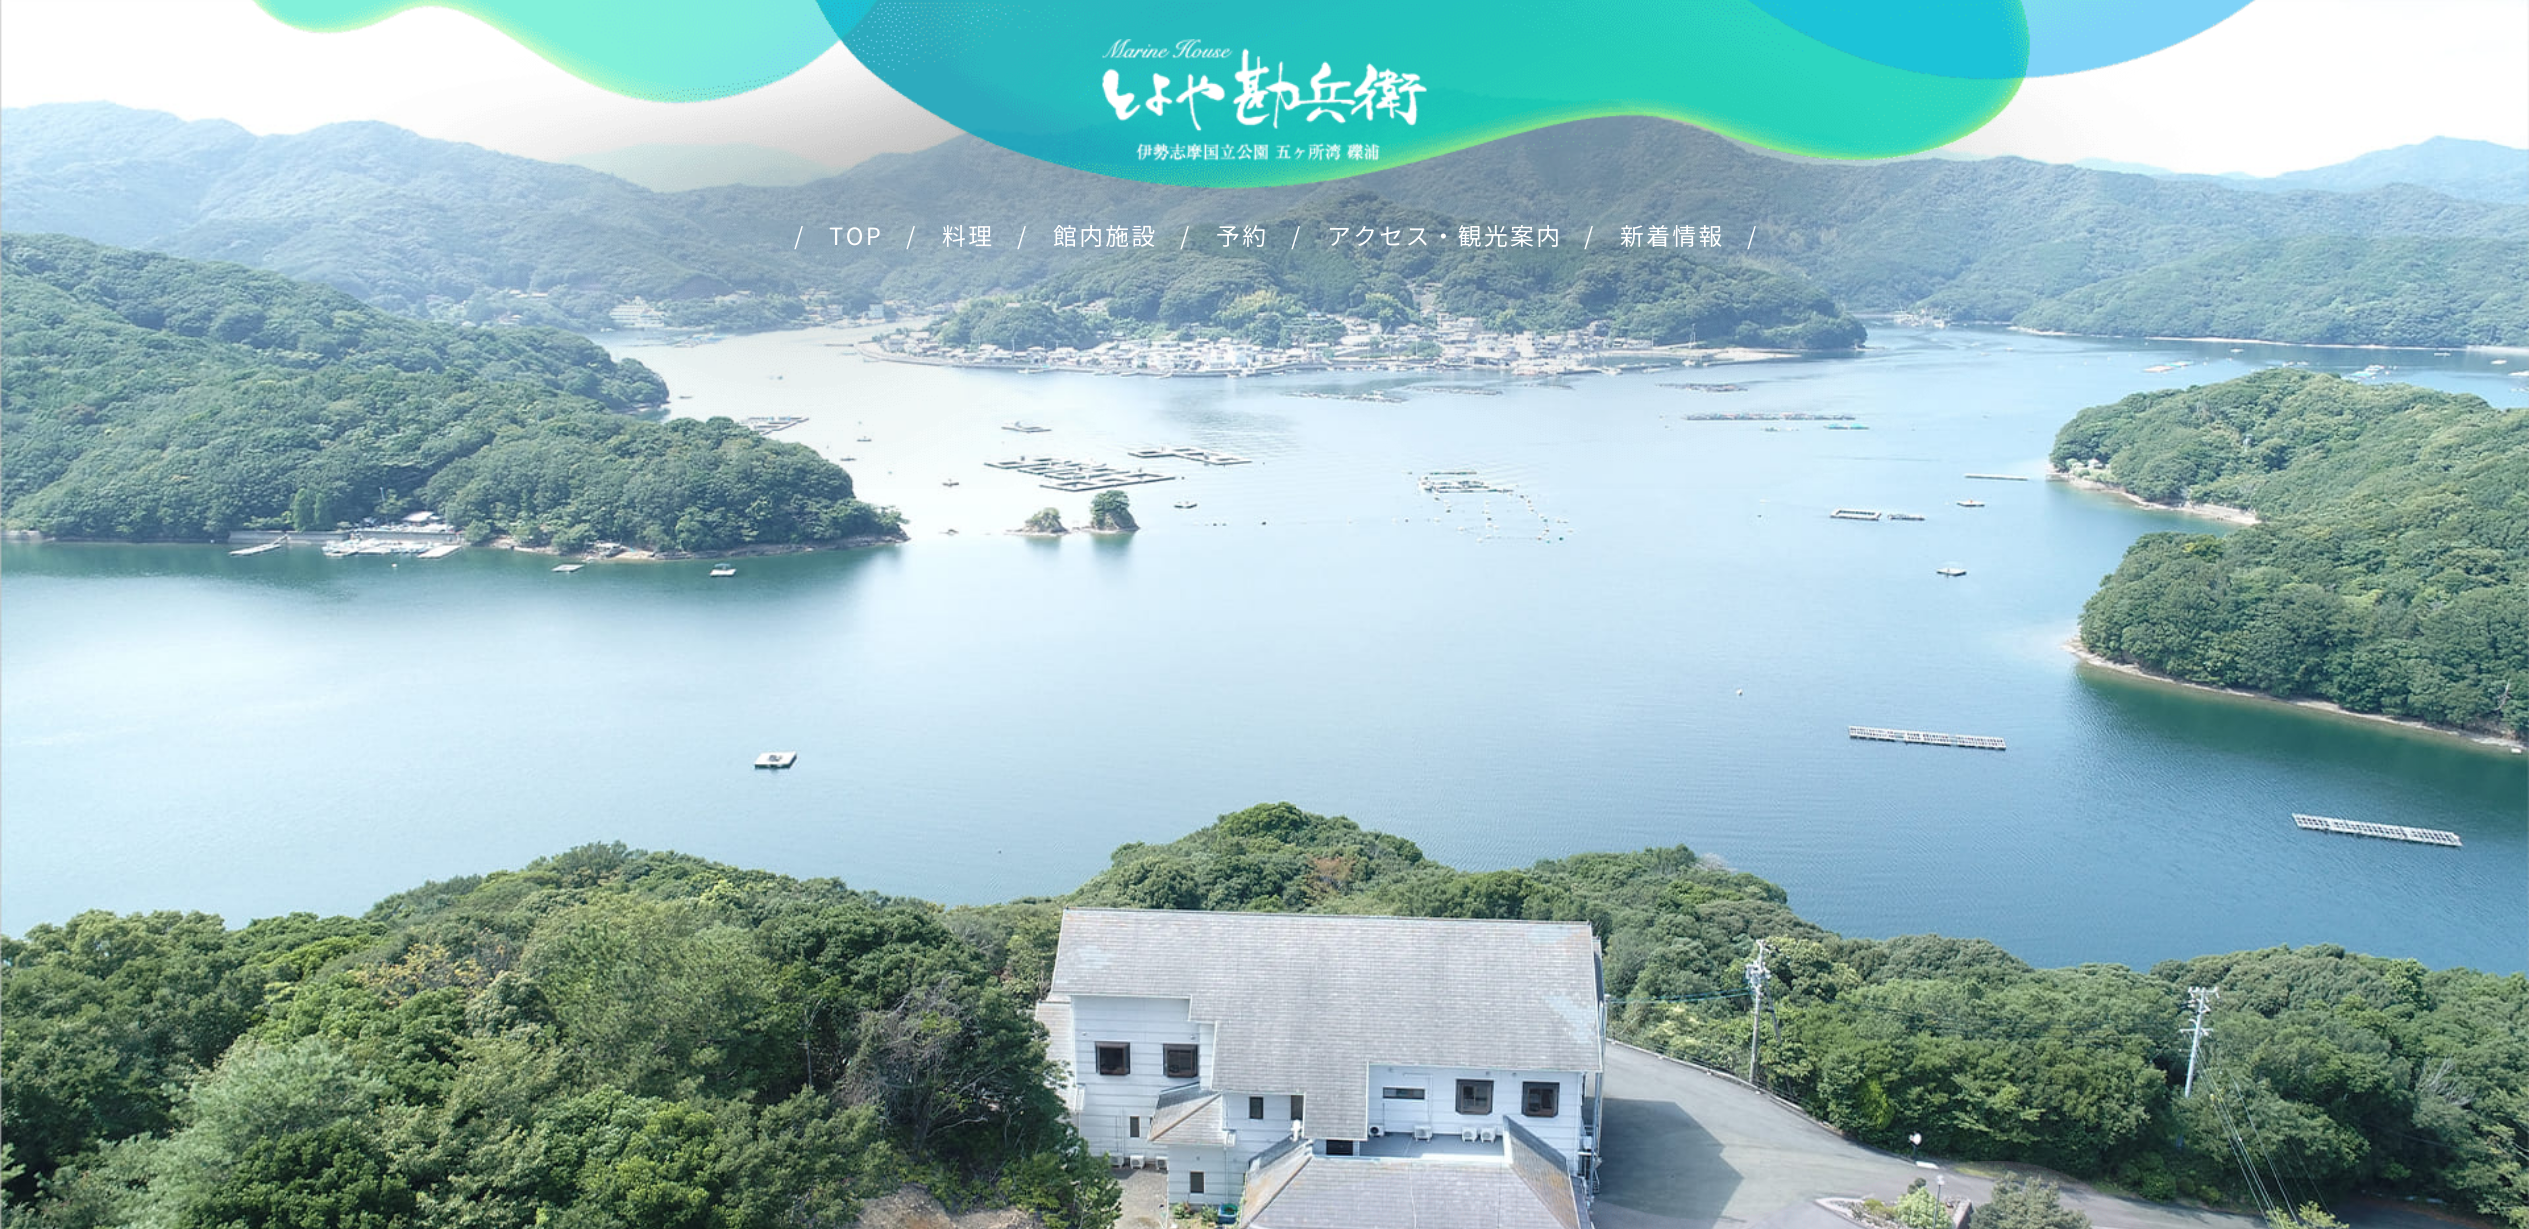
#include <cairo.h>
#include <math.h>
#include <stddef.h>


static void spaced_text(cairo_t *cr, double x, double y, const char *s, double letter, double word) {
    cairo_move_to(cr, x, y);
    while (*s) {
        char ch[5] = {0};
        int n = 0;
        do ch[n++] = *s++; while ((*s & 0xC0) == 0x80);
        cairo_show_text(cr, ch);
        cairo_rel_move_to(cr, letter + word * (*ch == ' '), 0);
    }
}

static void picture(cairo_t *cr, const char *path, double x, double y, double w, double h) {
    cairo_surface_t *image = cairo_image_surface_create_from_png(path);
    cairo_save(cr);
    cairo_set_source_surface(cr, image, x, y);
    cairo_rectangle(cr, x, y, w, h);
    cairo_fill(cr);
    cairo_restore(cr);
    cairo_surface_destroy(image);
}

int main(void) {
    cairo_surface_t *surface = cairo_image_surface_create(CAIRO_FORMAT_RGB24, 2529, 1229);
    cairo_t *cr = cairo_create(surface);
    cairo_font_options_t *options = cairo_font_options_create();
    cairo_font_options_set_hint_metrics(options, CAIRO_HINT_METRICS_OFF);
    cairo_font_options_set_hint_style(options, CAIRO_HINT_STYLE_NONE);
    cairo_set_font_options(cr, options);
    cairo_set_miter_limit(cr, 4);
    cairo_set_source_rgb(cr, 1, 1, 1);
    cairo_paint(cr);
    picture(cr, "img1.png", 0, 0, 2529, 1229);
    picture(cr, "img2.png", 1215, 1161, 937, 68);
    picture(cr, "img3.png", 251, 0, 2005, 489);
    picture(cr, "img4.png", 1102, 39, 325, 122);
    cairo_select_font_face(cr, "Noto Sans JP", CAIRO_FONT_SLANT_NORMAL, CAIRO_FONT_WEIGHT_NORMAL);
    cairo_set_font_size(cr, 23.75);
    cairo_set_source_rgb(cr, 1, 1, 1);
    spaced_text(cr, 794, 245, "/", 2.4, 0);
    spaced_text(cr, 829, 245, "TOP", 2.4, 0);
    spaced_text(cr, 906, 245, "/", 2.4, 0);
    spaced_text(cr, 942, 245, "料理", 2.4, 0);
    spaced_text(cr, 1017, 245, "/", 2.4, 0);
    spaced_text(cr, 1053, 245, "館内施設", 2.4, 0);
    spaced_text(cr, 1180, 245, "/", 2.4, 0);
    spaced_text(cr, 1216, 245, "予約", 2.4, 0);
    spaced_text(cr, 1291, 245, "/", 2.4, 0);
    spaced_text(cr, 1327, 245, "アクセス・観光案内", 2.4, 0);
    spaced_text(cr, 1584, 245, "/", 2.4, 0);
    spaced_text(cr, 1620, 245, "新着情報", 2.4, 0);
    spaced_text(cr, 1747, 245, "/", 2.4, 0);
    cairo_surface_write_to_png(surface, "page.png");
    cairo_font_options_destroy(options);
    cairo_destroy(cr);
    cairo_surface_destroy(surface);
    return 0;
}
